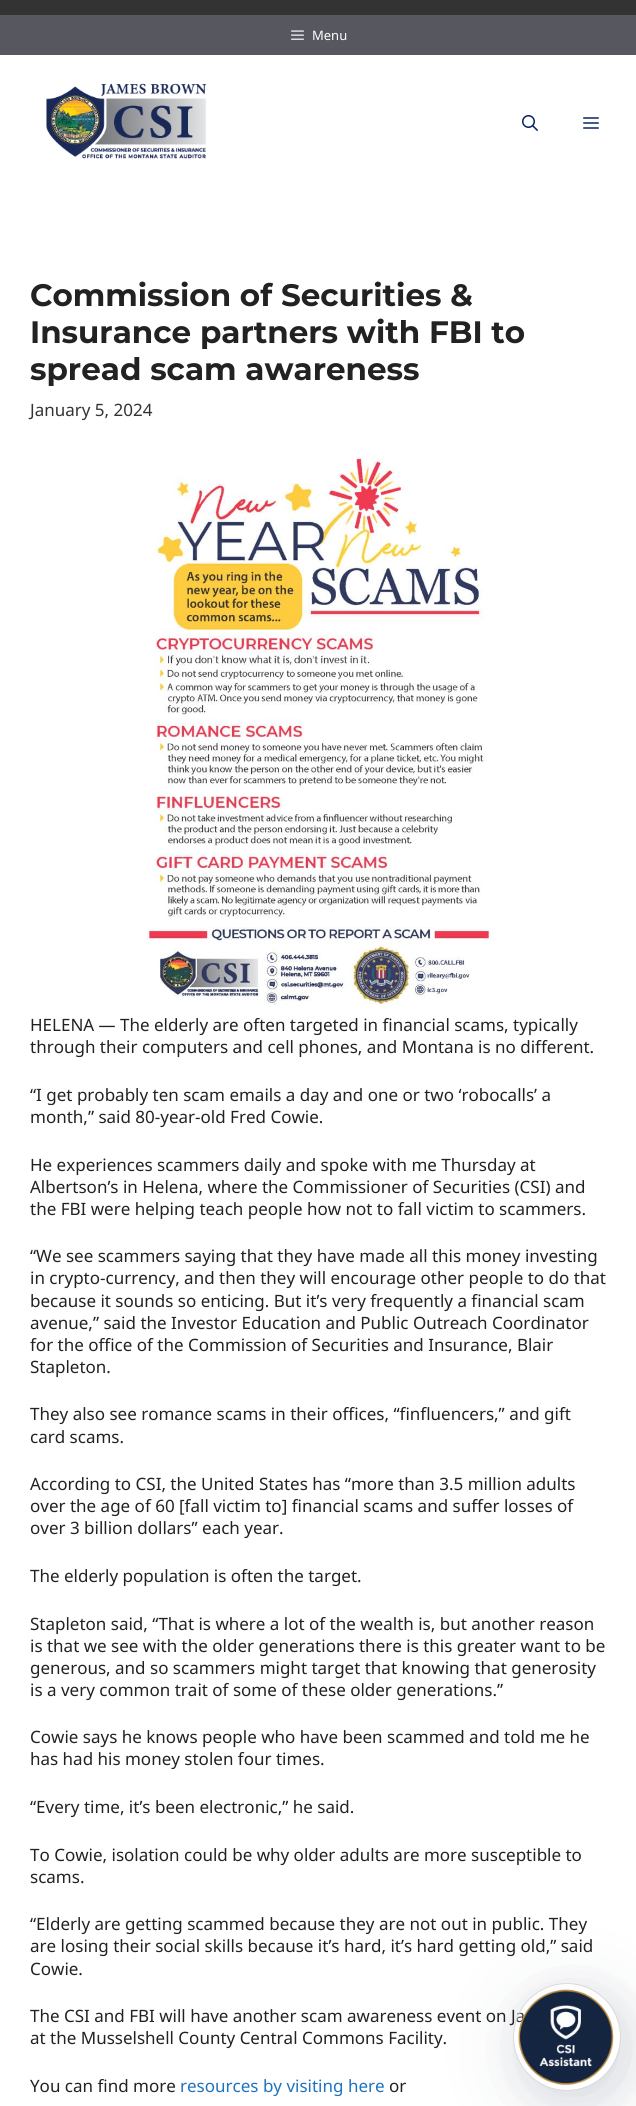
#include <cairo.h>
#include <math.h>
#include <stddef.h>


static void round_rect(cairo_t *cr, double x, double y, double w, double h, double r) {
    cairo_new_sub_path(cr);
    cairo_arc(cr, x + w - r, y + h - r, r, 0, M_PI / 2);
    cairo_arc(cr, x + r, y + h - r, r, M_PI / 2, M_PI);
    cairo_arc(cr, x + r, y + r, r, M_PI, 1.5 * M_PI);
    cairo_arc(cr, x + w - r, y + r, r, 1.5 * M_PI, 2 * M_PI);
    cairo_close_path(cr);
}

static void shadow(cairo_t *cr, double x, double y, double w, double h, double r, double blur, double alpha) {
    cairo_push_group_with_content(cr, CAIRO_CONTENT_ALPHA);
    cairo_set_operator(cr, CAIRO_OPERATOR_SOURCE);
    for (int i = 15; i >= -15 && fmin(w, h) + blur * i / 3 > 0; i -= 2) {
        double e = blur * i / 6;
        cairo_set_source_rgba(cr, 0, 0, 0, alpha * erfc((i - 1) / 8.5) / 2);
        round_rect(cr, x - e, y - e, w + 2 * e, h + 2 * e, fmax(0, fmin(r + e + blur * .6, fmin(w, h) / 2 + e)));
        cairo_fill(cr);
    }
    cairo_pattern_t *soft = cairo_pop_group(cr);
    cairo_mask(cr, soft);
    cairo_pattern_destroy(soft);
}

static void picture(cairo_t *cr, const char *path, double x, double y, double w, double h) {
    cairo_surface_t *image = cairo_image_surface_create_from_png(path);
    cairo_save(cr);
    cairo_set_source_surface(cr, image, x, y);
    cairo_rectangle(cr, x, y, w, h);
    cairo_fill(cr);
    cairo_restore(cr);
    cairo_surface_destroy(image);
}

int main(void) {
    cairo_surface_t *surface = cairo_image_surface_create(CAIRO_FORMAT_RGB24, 636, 2106);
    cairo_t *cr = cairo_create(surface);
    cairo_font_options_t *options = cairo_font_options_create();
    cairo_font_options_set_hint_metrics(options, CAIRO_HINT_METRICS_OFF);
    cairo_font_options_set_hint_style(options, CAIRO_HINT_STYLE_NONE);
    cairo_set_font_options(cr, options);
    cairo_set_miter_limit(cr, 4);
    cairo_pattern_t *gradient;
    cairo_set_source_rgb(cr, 1, 1, 1);
    cairo_paint(cr);
    cairo_set_source_rgb(cr, 0.2, 0.2, 0.2);
    cairo_rectangle(cr, 0, 0, 636, 15);
    cairo_fill(cr);
    cairo_set_source_rgb(cr, 0.341, 0.341, 0.376);
    cairo_rectangle(cr, 0, 15, 636, 40);
    cairo_fill(cr);
    picture(cr, "img1.png", 291, 30, 13, 10);
    cairo_select_font_face(cr, "Noto Sans", CAIRO_FONT_SLANT_NORMAL, CAIRO_FONT_WEIGHT_NORMAL);
    cairo_set_font_size(cr, 13);
    cairo_set_source_rgb(cr, 1, 1, 1);
    cairo_move_to(cr, 312, 40);
    cairo_show_text(cr, "Menu");
    picture(cr, "img2.png", 46, 83, 161, 76);
    picture(cr, "img3.png", 522, 115, 16, 16);
    picture(cr, "img4.png", 583, 117, 16, 12);
    cairo_select_font_face(cr, "Montserrat", CAIRO_FONT_SLANT_NORMAL, CAIRO_FONT_WEIGHT_BOLD);
    cairo_set_font_size(cr, 31);
    cairo_set_source_rgb(cr, 0.133, 0.133, 0.133);
    cairo_move_to(cr, 30, 306);
    cairo_show_text(cr, "Commission of Securities &");
    cairo_move_to(cr, 30, 343);
    cairo_show_text(cr, "Insurance partners with FBI to");
    cairo_move_to(cr, 30, 380);
    cairo_show_text(cr, "spread scam awareness");
    cairo_select_font_face(cr, "Noto Sans", CAIRO_FONT_SLANT_NORMAL, CAIRO_FONT_WEIGHT_NORMAL);
    cairo_set_font_size(cr, 17);
    cairo_set_source_rgb(cr, 0.2, 0.2, 0.2);
    cairo_move_to(cr, 30, 416);
    cairo_show_text(cr, "January 5, 2024");
    picture(cr, "img5.png", 147, 457, 347, 549);
    cairo_set_source_rgb(cr, 0.133, 0.133, 0.133);
    cairo_move_to(cr, 30, 1031);
    cairo_show_text(cr, "HELENA — The elderly are often targeted in financial scams, typically");
    cairo_move_to(cr, 30, 1053);
    cairo_show_text(cr, "through their computers and cell phones, and Montana is no different.");
    cairo_move_to(cr, 30, 1101);
    cairo_show_text(cr, "“I get probably ten scam emails a day and one or two ‘robocalls’ a");
    cairo_move_to(cr, 30, 1123);
    cairo_show_text(cr, "month,” said 80-year-old Fred Cowie.");
    cairo_move_to(cr, 30, 1171);
    cairo_show_text(cr, "He experiences scammers daily and spoke with me Thursday at");
    cairo_move_to(cr, 30, 1193);
    cairo_show_text(cr, "Albertson’s in Helena, where the Commissioner of Securities (CSI) and");
    cairo_move_to(cr, 30, 1215);
    cairo_show_text(cr, "the FBI were helping teach people how not to fall victim to scammers.");
    cairo_move_to(cr, 30, 1262);
    cairo_show_text(cr, "“We see scammers saying that they have made all this money investing");
    cairo_move_to(cr, 30, 1284);
    cairo_show_text(cr, "in crypto-currency, and then they will encourage other people to do that");
    cairo_move_to(cr, 30, 1307);
    cairo_show_text(cr, "because it sounds so enticing. But it’s very frequently a financial scam");
    cairo_move_to(cr, 30, 1329);
    cairo_show_text(cr, "avenue,” said the Investor Education and Public Outreach Coordinator");
    cairo_move_to(cr, 30, 1351);
    cairo_show_text(cr, "for the office of the Commission of Securities and Insurance, Blair");
    cairo_move_to(cr, 30, 1373);
    cairo_show_text(cr, "Stapleton.");
    cairo_move_to(cr, 30, 1420);
    cairo_show_text(cr, "They also see romance scams in their offices, “finfluencers,” and gift");
    cairo_move_to(cr, 30, 1443);
    cairo_show_text(cr, "card scams.");
    cairo_move_to(cr, 30, 1490);
    cairo_show_text(cr, "According to CSI, the United States has “more than 3.5 million adults");
    cairo_move_to(cr, 30, 1512);
    cairo_show_text(cr, "over the age of 60 [fall victim to] financial scams and suffer losses of");
    cairo_move_to(cr, 30, 1534);
    cairo_show_text(cr, "over 3 billion dollars” each year.");
    cairo_move_to(cr, 30, 1582);
    cairo_show_text(cr, "The elderly population is often the target.");
    cairo_move_to(cr, 30, 1630);
    cairo_show_text(cr, "Stapleton said, “That is where a lot of the wealth is, but another reason");
    cairo_move_to(cr, 30, 1652);
    cairo_show_text(cr, "is that we see with the older generations there is this greater want to be");
    cairo_move_to(cr, 30, 1674);
    cairo_show_text(cr, "generous, and so scammers might target that knowing that generosity");
    cairo_move_to(cr, 30, 1696);
    cairo_show_text(cr, "is a very common trait of some of these older generations.”");
    cairo_move_to(cr, 30, 1743);
    cairo_show_text(cr, "Cowie says he knows people who have been scammed and told me he");
    cairo_move_to(cr, 30, 1765);
    cairo_show_text(cr, "has had his money stolen four times.");
    cairo_move_to(cr, 30, 1813);
    cairo_show_text(cr, "“Every time, it’s been electronic,” he said.");
    cairo_move_to(cr, 30, 1861);
    cairo_show_text(cr, "To Cowie, isolation could be why older adults are more susceptible to");
    cairo_move_to(cr, 30, 1883);
    cairo_show_text(cr, "scams.");
    cairo_move_to(cr, 30, 1930);
    cairo_show_text(cr, "“Elderly are getting scammed because they are not out in public. They");
    cairo_move_to(cr, 30, 1952);
    cairo_show_text(cr, "are losing their social skills because it’s hard, it’s hard getting old,” said");
    cairo_move_to(cr, 30, 1975);
    cairo_show_text(cr, "Cowie.");
    cairo_move_to(cr, 30, 2022);
    cairo_show_text(cr, "The CSI and FBI will have another scam awareness event on Ja");
    cairo_move_to(cr, 30, 2044);
    cairo_show_text(cr, "at the Musselshell County Central Commons Facility.");
    cairo_move_to(cr, 30, 2092);
    cairo_show_text(cr, "You can find more");
    cairo_set_source_rgb(cr, 0.118, 0.451, 0.745);
    cairo_move_to(cr, 180, 2092);
    cairo_show_text(cr, "resources by visiting here");
    cairo_set_source_rgb(cr, 0.133, 0.133, 0.133);
    cairo_move_to(cr, 389, 2092);
    cairo_show_text(cr, "or");
    cairo_save(cr);
    cairo_set_fill_rule(cr, CAIRO_FILL_RULE_EVEN_ODD);
    cairo_new_path(cr);
    cairo_move_to(cr, 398, 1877);
    cairo_line_to(cr, 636, 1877);
    cairo_line_to(cr, 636, 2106);
    cairo_line_to(cr, 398, 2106);
    cairo_close_path(cr);
    cairo_move_to(cr, 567, 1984);
    cairo_curve_to(cr, 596.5, 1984, 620, 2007.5, 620, 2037);
    cairo_curve_to(cr, 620, 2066.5, 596.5, 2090, 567, 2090);
    cairo_curve_to(cr, 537.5, 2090, 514, 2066.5, 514, 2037);
    cairo_curve_to(cr, 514, 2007.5, 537.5, 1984, 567, 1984);
    cairo_close_path(cr);
    cairo_clip(cr);
    cairo_set_source_rgb(cr, 0.078, 0.145, 0.251);
    shadow(cr, 519, 1998, 106, 106, 53, 40, 0.12);
    cairo_restore(cr);
    cairo_save(cr);
    cairo_set_fill_rule(cr, CAIRO_FILL_RULE_EVEN_ODD);
    cairo_new_path(cr);
    cairo_move_to(cr, 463, 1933);
    cairo_line_to(cr, 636, 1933);
    cairo_line_to(cr, 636, 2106);
    cairo_line_to(cr, 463, 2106);
    cairo_close_path(cr);
    cairo_move_to(cr, 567, 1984);
    cairo_curve_to(cr, 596.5, 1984, 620, 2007.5, 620, 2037);
    cairo_curve_to(cr, 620, 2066.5, 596.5, 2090, 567, 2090);
    cairo_curve_to(cr, 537.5, 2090, 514, 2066.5, 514, 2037);
    cairo_curve_to(cr, 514, 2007.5, 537.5, 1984, 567, 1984);
    cairo_close_path(cr);
    cairo_clip(cr);
    cairo_set_source_rgb(cr, 0.078, 0.145, 0.251);
    shadow(cr, 524, 1994, 106, 106, 53, 20, 0.08);
    cairo_restore(cr);
    gradient = cairo_pattern_create_linear(567, 1985, 567, 2089);
    cairo_pattern_add_color_stop_rgba(gradient, 0, 0.949, 0.949, 0.949, 0.05);
    cairo_pattern_add_color_stop_rgba(gradient, 1, 0.949, 0.949, 0.949, 0.02);
    cairo_set_source(cr, gradient);
    cairo_pattern_destroy(gradient);
    cairo_rectangle(cr, 516, 2013, 8, 9);
    cairo_fill(cr);
    cairo_save(cr);
    round_rect(cr, 514, 1984, 106, 106, 53);
    cairo_clip(cr);
    gradient = cairo_pattern_create_radial(0, 0, 0, 0, 0, 1);
    cairo_pattern_set_matrix(gradient, &(cairo_matrix_t){1.0 / 77, 0, 0, 1.0 / 160, -1.0 * 560 / 77, -1.0 * 1924 / 160});
    cairo_pattern_add_color_stop_rgba(gradient, 0, 0.949, 0.949, 0.949, 0.33);
    cairo_pattern_add_color_stop_rgba(gradient, 1, 0.949, 0.949, 0.949, 0);
    cairo_set_source(cr, gradient);
    cairo_pattern_destroy(gradient);
    cairo_rectangle(cr, 515, 1985, 101, 64);
    cairo_fill(cr);
    gradient = cairo_pattern_create_radial(0, 0, 0, 0, 0, 1);
    cairo_pattern_set_matrix(gradient, &(cairo_matrix_t){1.0 / 77, 0, 0, 1.0 / 160, -1.0 * 560 / 77, -1.0 * 2028 / 160});
    cairo_pattern_add_color_stop_rgba(gradient, 0, 0.949, 0.949, 0.949, 0.33);
    cairo_pattern_add_color_stop_rgba(gradient, 1, 0.949, 0.949, 0.949, 0);
    cairo_set_source(cr, gradient);
    cairo_pattern_destroy(gradient);
    cairo_rectangle(cr, 557, 2089, 19, 1);
    cairo_fill(cr);
    cairo_restore(cr);
    cairo_arc(cr, 567, 2037, 52.5, 0, 2 * M_PI);
    cairo_set_source_rgba(cr, 1, 1, 1, 0.2);
    cairo_set_line_width(cr, 1);
    cairo_stroke(cr);
    cairo_arc(cr, 567, 2037, 53.5, 0, 2 * M_PI);
    cairo_set_source_rgb(cr, 0.859, 0.855, 0.871);
    cairo_stroke(cr);
    picture(cr, "img6.png", 518, 1989, 96, 96);
    cairo_surface_write_to_png(surface, "page.png");
    cairo_font_options_destroy(options);
    cairo_destroy(cr);
    cairo_surface_destroy(surface);
    return 0;
}
